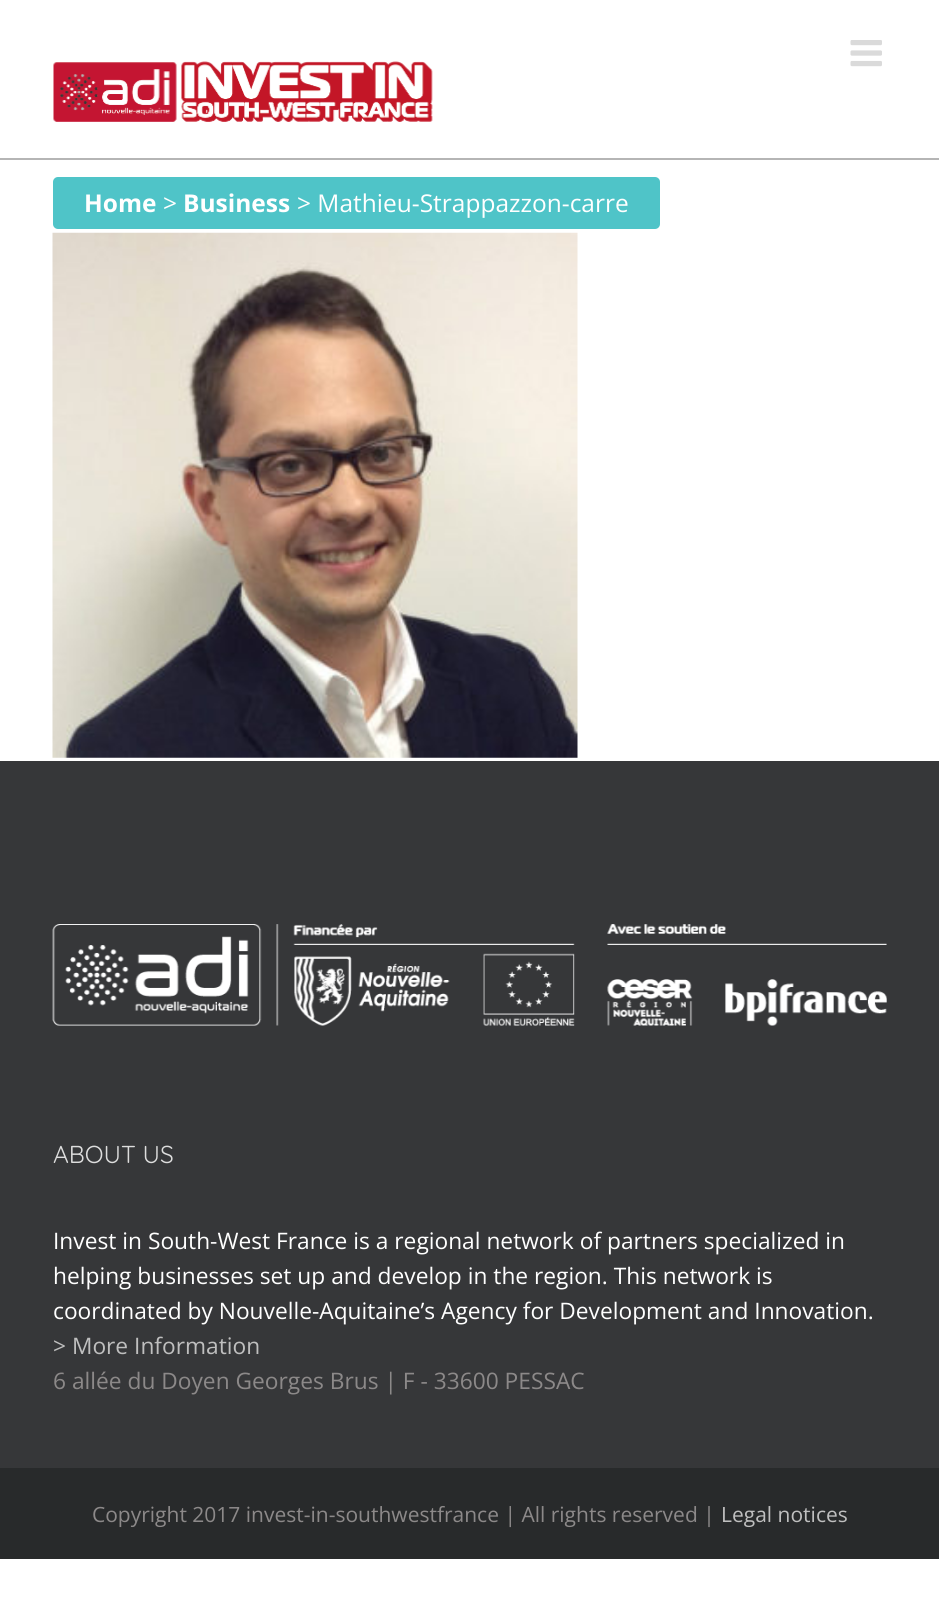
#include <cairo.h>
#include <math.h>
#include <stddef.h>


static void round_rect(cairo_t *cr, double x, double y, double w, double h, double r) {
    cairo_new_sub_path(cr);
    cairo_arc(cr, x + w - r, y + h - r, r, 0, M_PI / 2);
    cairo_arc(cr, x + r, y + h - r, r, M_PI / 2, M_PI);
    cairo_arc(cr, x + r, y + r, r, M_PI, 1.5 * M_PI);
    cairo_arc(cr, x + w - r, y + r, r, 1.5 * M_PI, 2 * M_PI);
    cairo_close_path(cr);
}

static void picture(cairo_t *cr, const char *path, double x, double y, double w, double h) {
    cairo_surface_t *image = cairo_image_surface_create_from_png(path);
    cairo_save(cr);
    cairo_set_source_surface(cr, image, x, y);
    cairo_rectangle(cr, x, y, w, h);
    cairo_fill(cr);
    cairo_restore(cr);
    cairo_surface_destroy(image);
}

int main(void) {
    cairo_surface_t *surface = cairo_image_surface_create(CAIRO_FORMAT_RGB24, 939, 1611);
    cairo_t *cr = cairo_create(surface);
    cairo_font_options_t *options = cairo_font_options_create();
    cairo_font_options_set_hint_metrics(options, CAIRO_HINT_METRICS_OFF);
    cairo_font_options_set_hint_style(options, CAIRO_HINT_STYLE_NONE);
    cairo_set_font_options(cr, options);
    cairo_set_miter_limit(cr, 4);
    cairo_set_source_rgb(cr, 1, 1, 1);
    cairo_paint(cr);
    cairo_set_source_rgb(cr, 0.71, 0.71, 0.71);
    cairo_rectangle(cr, 0, 158, 939, 2);
    cairo_fill(cr);
    picture(cr, "img1.png", 850, 40, 32, 27);
    picture(cr, "img2.png", 53, 61, 380, 61);
    cairo_set_source_rgb(cr, 0.31, 0.769, 0.784);
    round_rect(cr, 53, 177, 607, 52, 5);
    cairo_fill(cr);
    cairo_select_font_face(cr, "Open Sans", CAIRO_FONT_SLANT_NORMAL, CAIRO_FONT_WEIGHT_BOLD);
    cairo_set_font_size(cr, 24.5);
    cairo_set_source_rgb(cr, 1, 1, 1);
    cairo_move_to(cr, 84, 212);
    cairo_show_text(cr, "Home");
    cairo_select_font_face(cr, "Open Sans", CAIRO_FONT_SLANT_NORMAL, CAIRO_FONT_WEIGHT_NORMAL);
    cairo_move_to(cr, 163, 212);
    cairo_show_text(cr, ">");
    cairo_select_font_face(cr, "Open Sans", CAIRO_FONT_SLANT_NORMAL, CAIRO_FONT_WEIGHT_BOLD);
    cairo_move_to(cr, 183, 212);
    cairo_show_text(cr, "Business");
    cairo_select_font_face(cr, "Open Sans", CAIRO_FONT_SLANT_NORMAL, CAIRO_FONT_WEIGHT_NORMAL);
    cairo_move_to(cr, 297, 212);
    cairo_show_text(cr, "> Mathieu-Strappazzon-carre");
    picture(cr, "img3.png", 52, 232, 526, 526);
    cairo_set_source_rgb(cr, 0.212, 0.216, 0.224);
    cairo_rectangle(cr, 0, 761, 939, 707);
    cairo_fill(cr);
    picture(cr, "img4.png", 52, 924, 835, 102);
    cairo_select_font_face(cr, "Quicksand", CAIRO_FONT_SLANT_NORMAL, CAIRO_FONT_WEIGHT_NORMAL);
    cairo_set_source_rgb(cr, 0.867, 0.867, 0.867);
    cairo_move_to(cr, 53, 1163);
    cairo_show_text(cr, "ABOUT US");
    cairo_select_font_face(cr, "Open Sans", CAIRO_FONT_SLANT_NORMAL, CAIRO_FONT_WEIGHT_NORMAL);
    cairo_set_font_size(cr, 22.75);
    cairo_set_source_rgb(cr, 1, 1, 1);
    cairo_move_to(cr, 53, 1249);
    cairo_show_text(cr, "Invest in South-West France is a regional network of partners specialized in");
    cairo_move_to(cr, 53, 1284);
    cairo_show_text(cr, "helping businesses set up and develop in the region. This network is");
    cairo_move_to(cr, 53, 1319);
    cairo_show_text(cr, "coordinated by Nouvelle-Aquitaine’s Agency for Development and Innovation.");
    cairo_set_source_rgb(cr, 0.749, 0.749, 0.749);
    cairo_move_to(cr, 53, 1354);
    cairo_show_text(cr, "> More Information");
    cairo_set_source_rgb(cr, 0.549, 0.537, 0.537);
    cairo_move_to(cr, 53, 1389);
    cairo_show_text(cr, "6 allée du Doyen Georges Brus | F - 33600 PESSAC");
    cairo_set_source_rgb(cr, 0.157, 0.165, 0.169);
    cairo_rectangle(cr, 0, 1468, 939, 91);
    cairo_fill(cr);
    cairo_set_font_size(cr, 21);
    cairo_set_source_rgb(cr, 0.549, 0.537, 0.537);
    cairo_move_to(cr, 92, 1522);
    cairo_show_text(cr, "Copyright 2017 invest-in-southwestfrance | All rights reserved |");
    cairo_set_source_rgb(cr, 0.749, 0.749, 0.749);
    cairo_move_to(cr, 721, 1522);
    cairo_show_text(cr, "Legal notices");
    cairo_surface_write_to_png(surface, "page.png");
    cairo_font_options_destroy(options);
    cairo_destroy(cr);
    cairo_surface_destroy(surface);
    return 0;
}
